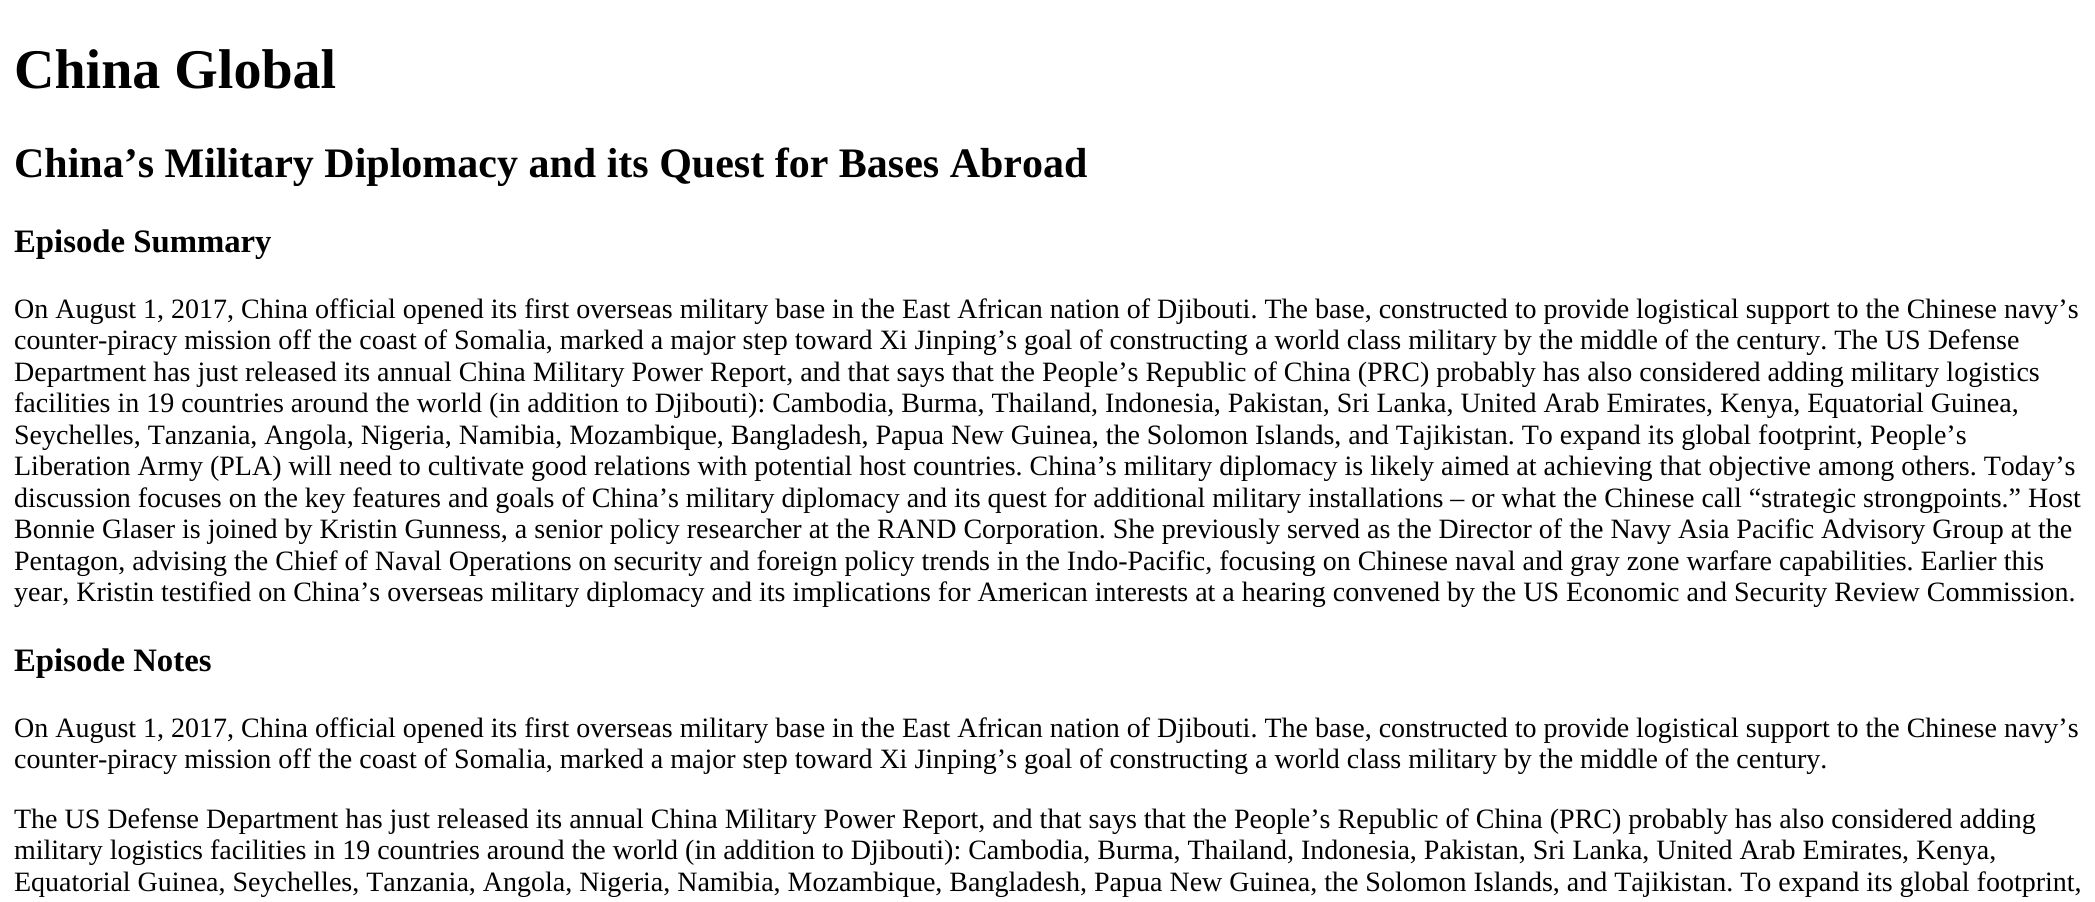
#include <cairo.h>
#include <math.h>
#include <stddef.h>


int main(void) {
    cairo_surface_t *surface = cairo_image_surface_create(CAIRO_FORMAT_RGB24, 2095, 902);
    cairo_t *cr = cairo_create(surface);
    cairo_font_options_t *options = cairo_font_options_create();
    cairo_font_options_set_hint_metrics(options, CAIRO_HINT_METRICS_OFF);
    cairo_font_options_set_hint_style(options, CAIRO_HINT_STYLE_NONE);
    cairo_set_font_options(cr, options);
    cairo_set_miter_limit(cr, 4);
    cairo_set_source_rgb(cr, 1, 1, 1);
    cairo_paint(cr);
    cairo_select_font_face(cr, "Liberation Serif", CAIRO_FONT_SLANT_NORMAL, CAIRO_FONT_WEIGHT_BOLD);
    cairo_set_font_size(cr, 56);
    cairo_set_source_rgb(cr, 0, 0, 0);
    cairo_move_to(cr, 14, 88);
    cairo_show_text(cr, "China Global");
    cairo_set_font_size(cr, 42);
    cairo_move_to(cr, 14, 177);
    cairo_show_text(cr, "China’s Military Diplomacy and its Quest for Bases Abroad");
    cairo_set_font_size(cr, 32.75);
    cairo_move_to(cr, 14, 252);
    cairo_show_text(cr, "Episode Summary");
    cairo_select_font_face(cr, "Liberation Serif", CAIRO_FONT_SLANT_NORMAL, CAIRO_FONT_WEIGHT_NORMAL);
    cairo_set_font_size(cr, 28);
    cairo_move_to(cr, 14, 318);
    cairo_show_text(cr, "On August 1, 2017, China official opened its first overseas military base in the East African nation of Djibouti. The base, constructed to provide logistical support to the Chinese navy’s");
    cairo_move_to(cr, 14, 349);
    cairo_show_text(cr, "counter-piracy mission off the coast of Somalia, marked a major step toward Xi Jinping’s goal of constructing a world class military by the middle of the century. The US Defense");
    cairo_move_to(cr, 14, 381);
    cairo_show_text(cr, "Department has just released its annual China Military Power Report, and that says that the People’s Republic of China (PRC) probably has also considered adding military logistics");
    cairo_move_to(cr, 14, 412);
    cairo_show_text(cr, "facilities in 19 countries around the world (in addition to Djibouti): Cambodia, Burma, Thailand, Indonesia, Pakistan, Sri Lanka, United Arab Emirates, Kenya, Equatorial Guinea,");
    cairo_move_to(cr, 14, 444);
    cairo_show_text(cr, "Seychelles, Tanzania, Angola, Nigeria, Namibia, Mozambique, Bangladesh, Papua New Guinea, the Solomon Islands, and Tajikistan. To expand its global footprint, People’s");
    cairo_move_to(cr, 14, 475);
    cairo_show_text(cr, "Liberation Army (PLA) will need to cultivate good relations with potential host countries. China’s military diplomacy is likely aimed at achieving that objective among others. Today’s");
    cairo_move_to(cr, 14, 507);
    cairo_show_text(cr, "discussion focuses on the key features and goals of China’s military diplomacy and its quest for additional military installations – or what the Chinese call “strategic strongpoints.” Host");
    cairo_move_to(cr, 14, 538);
    cairo_show_text(cr, "Bonnie Glaser is joined by Kristin Gunness, a senior policy researcher at the RAND Corporation. She previously served as the Director of the Navy Asia Pacific Advisory Group at the");
    cairo_move_to(cr, 14, 570);
    cairo_show_text(cr, "Pentagon, advising the Chief of Naval Operations on security and foreign policy trends in the Indo-Pacific, focusing on Chinese naval and gray zone warfare capabilities. Earlier this");
    cairo_move_to(cr, 14, 601);
    cairo_show_text(cr, "year, Kristin testified on China’s overseas military diplomacy and its implications for American interests at a hearing convened by the US Economic and Security Review Commission.");
    cairo_select_font_face(cr, "Liberation Serif", CAIRO_FONT_SLANT_NORMAL, CAIRO_FONT_WEIGHT_BOLD);
    cairo_set_font_size(cr, 32.75);
    cairo_move_to(cr, 14, 671);
    cairo_show_text(cr, "Episode Notes");
    cairo_select_font_face(cr, "Liberation Serif", CAIRO_FONT_SLANT_NORMAL, CAIRO_FONT_WEIGHT_NORMAL);
    cairo_set_font_size(cr, 28);
    cairo_move_to(cr, 14, 737);
    cairo_show_text(cr, "On August 1, 2017, China official opened its first overseas military base in the East African nation of Djibouti. The base, constructed to provide logistical support to the Chinese navy’s");
    cairo_move_to(cr, 14, 768);
    cairo_show_text(cr, "counter-piracy mission off the coast of Somalia, marked a major step toward Xi Jinping’s goal of constructing a world class military by the middle of the century.");
    cairo_move_to(cr, 14, 828);
    cairo_show_text(cr, "The US Defense Department has just released its annual China Military Power Report, and that says that the People’s Republic of China (PRC) probably has also considered adding");
    cairo_move_to(cr, 14, 859);
    cairo_show_text(cr, "military logistics facilities in 19 countries around the world (in addition to Djibouti): Cambodia, Burma, Thailand, Indonesia, Pakistan, Sri Lanka, United Arab Emirates, Kenya,");
    cairo_move_to(cr, 14, 891);
    cairo_show_text(cr, "Equatorial Guinea, Seychelles, Tanzania, Angola, Nigeria, Namibia, Mozambique, Bangladesh, Papua New Guinea, the Solomon Islands, and Tajikistan. To expand its global footprint,");
    cairo_surface_write_to_png(surface, "page.png");
    cairo_font_options_destroy(options);
    cairo_destroy(cr);
    cairo_surface_destroy(surface);
    return 0;
}
